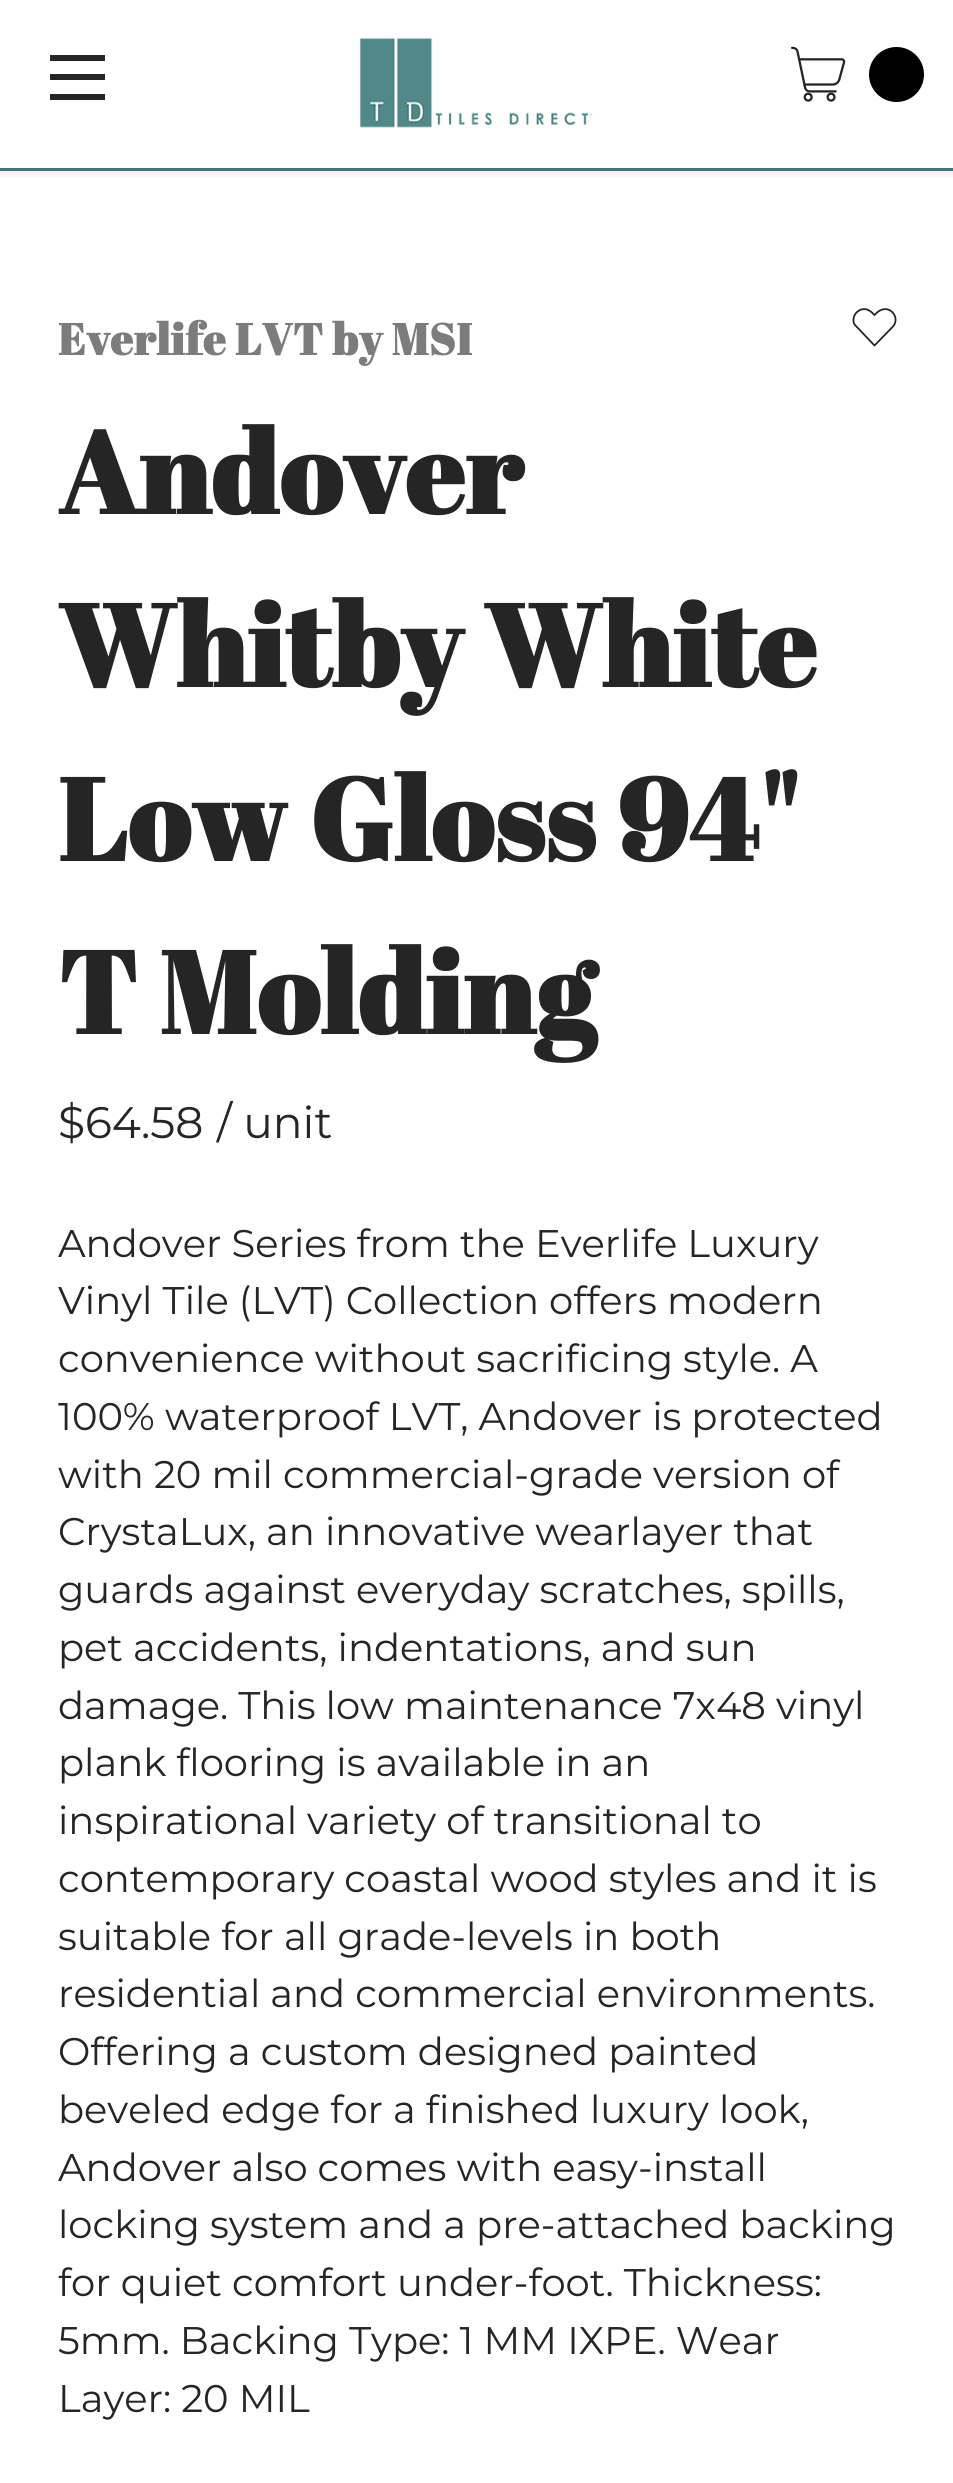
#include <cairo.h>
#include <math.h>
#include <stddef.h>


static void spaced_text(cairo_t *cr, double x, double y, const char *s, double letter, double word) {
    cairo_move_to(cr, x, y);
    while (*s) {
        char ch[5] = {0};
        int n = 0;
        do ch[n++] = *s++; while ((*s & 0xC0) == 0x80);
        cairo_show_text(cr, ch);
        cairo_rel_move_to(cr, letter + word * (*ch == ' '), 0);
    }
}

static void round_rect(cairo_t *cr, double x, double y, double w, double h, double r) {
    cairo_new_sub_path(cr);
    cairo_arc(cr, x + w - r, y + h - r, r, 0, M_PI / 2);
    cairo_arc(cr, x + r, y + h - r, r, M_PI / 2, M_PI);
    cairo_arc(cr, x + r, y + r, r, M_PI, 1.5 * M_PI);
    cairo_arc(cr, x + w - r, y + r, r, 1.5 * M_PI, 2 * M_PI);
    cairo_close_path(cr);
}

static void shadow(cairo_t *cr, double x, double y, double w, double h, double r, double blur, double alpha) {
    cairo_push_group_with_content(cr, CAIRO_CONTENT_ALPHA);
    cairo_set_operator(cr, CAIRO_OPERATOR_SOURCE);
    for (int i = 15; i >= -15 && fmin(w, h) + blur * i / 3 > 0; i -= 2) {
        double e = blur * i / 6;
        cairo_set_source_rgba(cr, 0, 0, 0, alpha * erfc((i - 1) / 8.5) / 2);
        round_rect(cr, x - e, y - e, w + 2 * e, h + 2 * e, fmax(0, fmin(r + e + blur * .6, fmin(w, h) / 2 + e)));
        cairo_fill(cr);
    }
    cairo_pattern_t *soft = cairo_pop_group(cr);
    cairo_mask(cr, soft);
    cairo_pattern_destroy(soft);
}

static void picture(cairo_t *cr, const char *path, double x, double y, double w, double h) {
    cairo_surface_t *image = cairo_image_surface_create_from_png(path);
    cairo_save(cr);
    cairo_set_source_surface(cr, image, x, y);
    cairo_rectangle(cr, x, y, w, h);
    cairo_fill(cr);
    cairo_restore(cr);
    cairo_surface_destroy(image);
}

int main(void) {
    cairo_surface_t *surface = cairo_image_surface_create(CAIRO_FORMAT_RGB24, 953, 2483);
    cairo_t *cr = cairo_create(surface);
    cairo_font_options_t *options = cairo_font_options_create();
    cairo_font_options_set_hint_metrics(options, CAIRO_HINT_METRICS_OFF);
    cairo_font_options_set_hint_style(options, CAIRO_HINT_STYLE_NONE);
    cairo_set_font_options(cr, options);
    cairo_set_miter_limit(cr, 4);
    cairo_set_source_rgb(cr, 1, 1, 1);
    cairo_paint(cr);
    cairo_set_source_rgb(cr, 0.286, 0.475, 0.475);
    cairo_rectangle(cr, 0, 168, 953, 3);
    cairo_fill(cr);
    cairo_save(cr);
    cairo_rectangle(cr, 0, 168, 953, 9);
    cairo_clip(cr);
    cairo_set_source_rgb(cr, 0, 0, 0);
    shadow(cr, -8, -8, 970, 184, 0, 3, 0.06);
    cairo_restore(cr);
    cairo_set_source_rgb(cr, 0.145, 0.145, 0.145);
    cairo_rectangle(cr, 50, 74, 55, 6);
    cairo_fill(cr);
    cairo_rectangle(cr, 50, 55, 55, 6);
    cairo_fill(cr);
    cairo_rectangle(cr, 50, 94, 55, 6);
    cairo_fill(cr);
    picture(cr, "img1.png", 359, 38, 234, 90);
    picture(cr, "img2.png", 791, 46, 55, 56);
    cairo_set_source_rgb(cr, 0, 0, 0);
    cairo_arc(cr, 896.5, 74.5, 27.5, 0, 2 * M_PI);
    cairo_fill(cr);
    cairo_select_font_face(cr, "Abril Fatface", CAIRO_FONT_SLANT_NORMAL, CAIRO_FONT_WEIGHT_BOLD);
    cairo_set_font_size(cr, 44);
    cairo_set_source_rgb(cr, 0.486, 0.486, 0.486);
    spaced_text(cr, 58, 355, "Everlife LVT by MSI", 0.7, 0);
    cairo_new_path(cr);
    cairo_move_to(cr, 874.5, 345.5);
    cairo_line_to(cr, 854.5, 324.5);
    cairo_curve_to(cr, 850.5, 316.5, 858.5, 307, 867, 309.5);
    cairo_curve_to(cr, 870, 310.5, 872, 312.5, 874.5, 315);
    cairo_curve_to(cr, 876.5, 313, 878.5, 311, 881, 310);
    cairo_curve_to(cr, 891.5, 305.5, 900.5, 319, 892.5, 327);
    cairo_close_path(cr);
    cairo_set_source_rgb(cr, 0.145, 0.145, 0.145);
    cairo_set_line_width(cr, 1.8);
    cairo_set_line_cap(cr, CAIRO_LINE_CAP_ROUND);
    cairo_set_line_join(cr, CAIRO_LINE_JOIN_ROUND);
    cairo_stroke(cr);
    cairo_set_font_size(cr, 115.5);
    spaced_text(cr, 58, 514, "Andover", 0.7, 0);
    spaced_text(cr, 58, 687, "Whitby White", 0.7, 0);
    spaced_text(cr, 58, 861, "Low Gloss 94\"", 0.7, 0);
    spaced_text(cr, 58, 1034, "T Molding", 0.7, 0);
    cairo_select_font_face(cr, "Montserrat Thin", CAIRO_FONT_SLANT_NORMAL, CAIRO_FONT_WEIGHT_NORMAL);
    cairo_set_font_size(cr, 44);
    cairo_move_to(cr, 58, 1138);
    cairo_show_text(cr, "$64.58");
    cairo_move_to(cr, 217, 1138);
    cairo_show_text(cr, "/ unit");
    cairo_set_font_size(cr, 38.5);
    cairo_move_to(cr, 58, 1257);
    cairo_show_text(cr, "Andover Series from the Everlife Luxury");
    cairo_move_to(cr, 58, 1314);
    cairo_show_text(cr, "Vinyl Tile (LVT) Collection offers modern");
    cairo_move_to(cr, 58, 1372);
    cairo_show_text(cr, "convenience without sacrificing style. A");
    cairo_move_to(cr, 58, 1430);
    cairo_show_text(cr, "100% waterproof LVT, Andover is protected");
    cairo_move_to(cr, 58, 1488);
    cairo_show_text(cr, "with 20 mil commercial-grade version of");
    cairo_move_to(cr, 58, 1545);
    cairo_show_text(cr, "CrystaLux, an innovative wearlayer that");
    cairo_move_to(cr, 58, 1603);
    cairo_show_text(cr, "guards against everyday scratches, spills,");
    cairo_move_to(cr, 58, 1661);
    cairo_show_text(cr, "pet accidents, indentations, and sun");
    cairo_move_to(cr, 58, 1719);
    cairo_show_text(cr, "damage. This low maintenance 7x48 vinyl");
    cairo_move_to(cr, 58, 1776);
    cairo_show_text(cr, "plank flooring is available in an");
    cairo_move_to(cr, 58, 1834);
    cairo_show_text(cr, "inspirational variety of transitional to");
    cairo_move_to(cr, 58, 1892);
    cairo_show_text(cr, "contemporary coastal wood styles and it is");
    cairo_move_to(cr, 58, 1950);
    cairo_show_text(cr, "suitable for all grade-levels in both");
    cairo_move_to(cr, 58, 2007);
    cairo_show_text(cr, "residential and commercial environments.");
    cairo_move_to(cr, 58, 2065);
    cairo_show_text(cr, "Offering a custom designed painted");
    cairo_move_to(cr, 58, 2123);
    cairo_show_text(cr, "beveled edge for a finished luxury look,");
    cairo_move_to(cr, 58, 2181);
    cairo_show_text(cr, "Andover also comes with easy-install");
    cairo_move_to(cr, 58, 2238);
    cairo_show_text(cr, "locking system and a pre-attached backing");
    cairo_move_to(cr, 58, 2296);
    cairo_show_text(cr, "for quiet comfort under-foot. Thickness:");
    cairo_move_to(cr, 58, 2354);
    cairo_show_text(cr, "5mm. Backing Type: 1 MM IXPE. Wear");
    cairo_move_to(cr, 58, 2412);
    cairo_show_text(cr, "Layer: 20 MIL");
    cairo_surface_write_to_png(surface, "page.png");
    cairo_font_options_destroy(options);
    cairo_destroy(cr);
    cairo_surface_destroy(surface);
    return 0;
}
